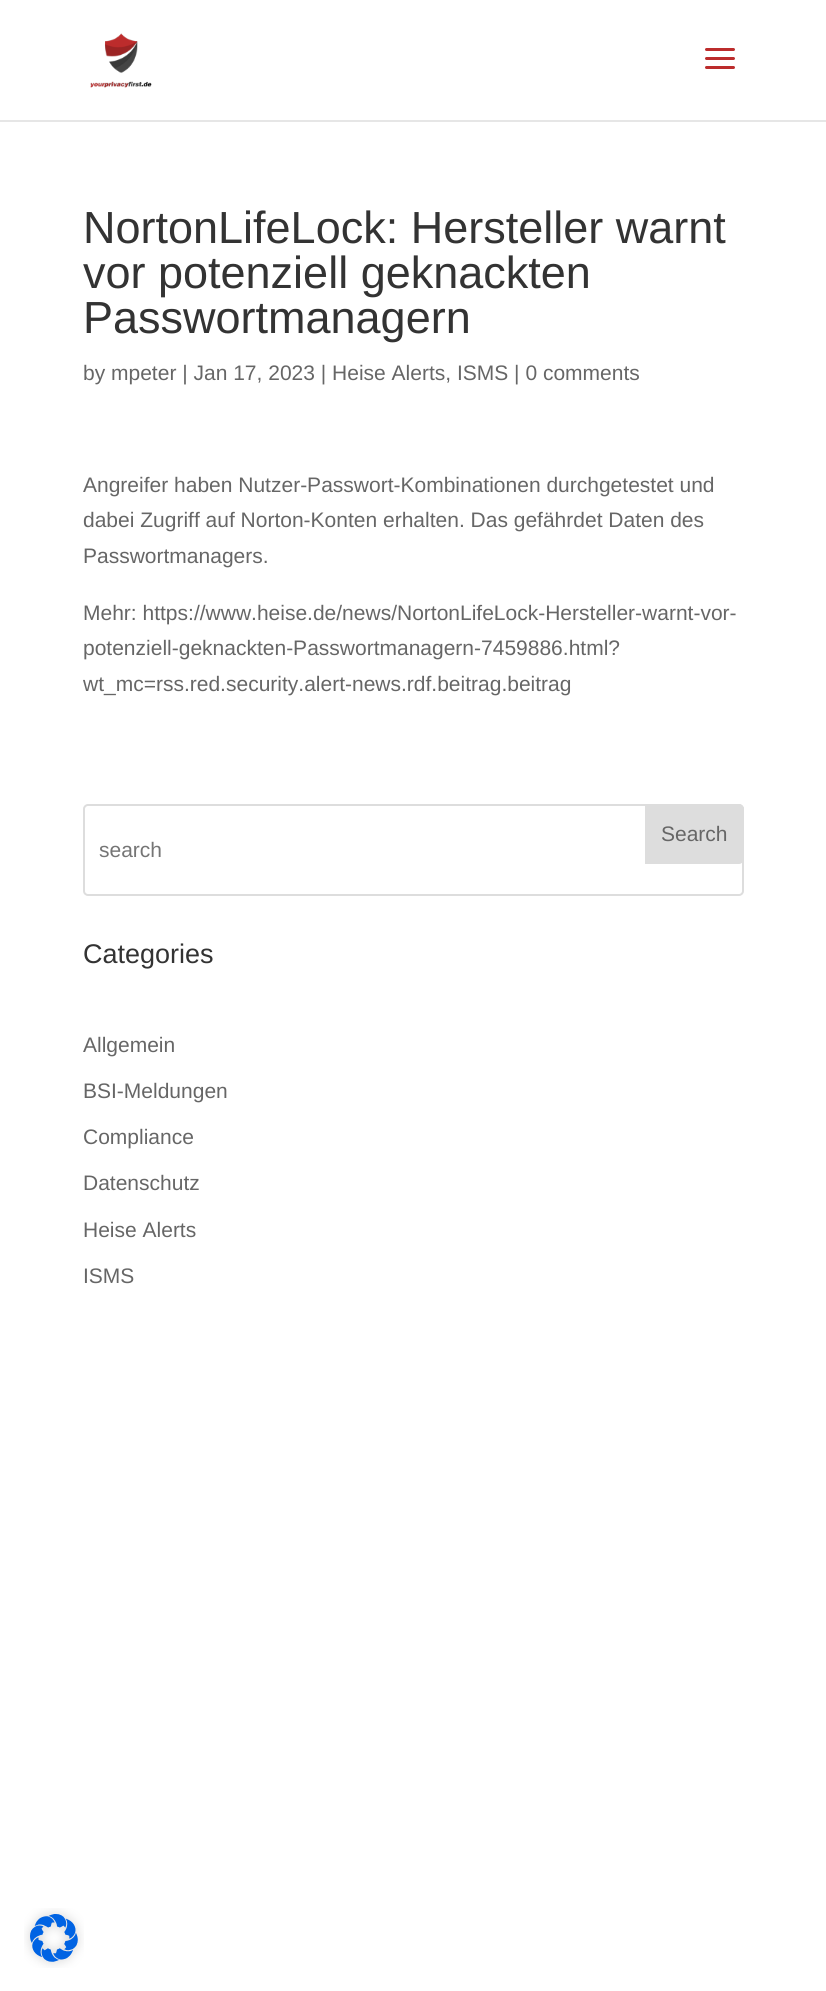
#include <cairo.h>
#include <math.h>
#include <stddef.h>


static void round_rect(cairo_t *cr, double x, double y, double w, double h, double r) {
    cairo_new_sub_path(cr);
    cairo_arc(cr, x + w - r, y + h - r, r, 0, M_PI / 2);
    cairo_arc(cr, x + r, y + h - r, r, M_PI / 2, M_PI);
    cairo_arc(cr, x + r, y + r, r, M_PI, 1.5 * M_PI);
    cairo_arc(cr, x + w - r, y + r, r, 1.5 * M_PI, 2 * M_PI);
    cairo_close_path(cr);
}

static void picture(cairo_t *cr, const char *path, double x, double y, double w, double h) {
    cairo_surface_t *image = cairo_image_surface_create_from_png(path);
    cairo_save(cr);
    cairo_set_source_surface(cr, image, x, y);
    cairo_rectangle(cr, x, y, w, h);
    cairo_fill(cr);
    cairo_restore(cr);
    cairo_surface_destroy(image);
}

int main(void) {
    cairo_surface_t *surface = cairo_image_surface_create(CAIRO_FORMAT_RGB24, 826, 1991);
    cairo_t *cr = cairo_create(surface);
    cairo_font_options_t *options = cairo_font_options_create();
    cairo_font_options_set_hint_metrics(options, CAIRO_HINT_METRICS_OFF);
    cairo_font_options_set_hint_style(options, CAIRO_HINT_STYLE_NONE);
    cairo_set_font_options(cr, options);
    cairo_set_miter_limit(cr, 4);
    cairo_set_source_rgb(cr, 1, 1, 1);
    cairo_paint(cr);
    cairo_set_source_rgb(cr, 0.902, 0.902, 0.902);
    cairo_new_path(cr);
    cairo_move_to(cr, 0, 120);
    cairo_line_to(cr, 0, 122);
    cairo_line_to(cr, 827, 122);
    cairo_line_to(cr, 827, 2);
    cairo_line_to(cr, 826, 2);
    cairo_line_to(cr, 826, 120);
    cairo_close_path(cr);
    cairo_fill(cr);
    picture(cr, "img1.png", 90, 33, 62, 55);
    picture(cr, "img2.png", 705, 48, 30, 21);
    cairo_select_font_face(cr, "Liberation Sans", CAIRO_FONT_SLANT_NORMAL, CAIRO_FONT_WEIGHT_NORMAL);
    cairo_set_font_size(cr, 45);
    cairo_set_source_rgb(cr, 0.2, 0.2, 0.2);
    cairo_move_to(cr, 83, 243);
    cairo_show_text(cr, "NortonLifeLock: Hersteller warnt");
    cairo_move_to(cr, 83, 288);
    cairo_show_text(cr, "vor potenziell geknackten");
    cairo_move_to(cr, 83, 333);
    cairo_show_text(cr, "Passwortmanagern");
    cairo_set_font_size(cr, 21);
    cairo_set_source_rgb(cr, 0.4, 0.4, 0.4);
    cairo_move_to(cr, 83, 380);
    cairo_show_text(cr, "by mpeter | Jan 17, 2023 | Heise Alerts, ISMS | 0 comments");
    cairo_move_to(cr, 83, 492);
    cairo_show_text(cr, "Angreifer haben Nutzer-Passwort-Kombinationen durchgetestet und");
    cairo_move_to(cr, 83, 527);
    cairo_show_text(cr, "dabei Zugriff auf Norton-Konten erhalten. Das gefährdet Daten des");
    cairo_move_to(cr, 83, 563);
    cairo_show_text(cr, "Passwortmanagers.");
    cairo_move_to(cr, 83, 620);
    cairo_show_text(cr, "Mehr: https://www.heise.de/news/NortonLifeLock-Hersteller-warnt-vor-");
    cairo_move_to(cr, 83, 655);
    cairo_show_text(cr, "potenziell-geknackten-Passwortmanagern-7459886.html?");
    cairo_move_to(cr, 83, 691);
    cairo_show_text(cr, "wt_mc=rss.red.security.alert-news.rdf.beitrag.beitrag");
    round_rect(cr, 84, 805, 659, 90, 4);
    cairo_set_source_rgb(cr, 0.867, 0.867, 0.867);
    cairo_stroke(cr);
    cairo_new_path(cr);
    cairo_move_to(cr, 646, 805);
    cairo_line_to(cr, 739, 805);
    cairo_curve_to(cr, 741, 805, 743, 807, 743, 809);
    cairo_line_to(cr, 743, 859);
    cairo_curve_to(cr, 743, 861, 741, 863, 739, 863);
    cairo_line_to(cr, 646, 863);
    cairo_close_path(cr);
    cairo_fill_preserve(cr);
    cairo_stroke(cr);
    cairo_set_source_rgb(cr, 0.4, 0.4, 0.4);
    cairo_move_to(cr, 661, 841);
    cairo_show_text(cr, "Search");
    cairo_set_source_rgb(cr, 0.459, 0.459, 0.459);
    cairo_move_to(cr, 99, 857);
    cairo_show_text(cr, "search");
    cairo_set_font_size(cr, 27);
    cairo_set_source_rgb(cr, 0.2, 0.2, 0.2);
    cairo_move_to(cr, 83, 963);
    cairo_show_text(cr, "Categories");
    cairo_set_font_size(cr, 21);
    cairo_set_source_rgb(cr, 0.4, 0.4, 0.4);
    cairo_move_to(cr, 83, 1052);
    cairo_show_text(cr, "Allgemein");
    cairo_move_to(cr, 83, 1098);
    cairo_show_text(cr, "BSI-Meldungen");
    cairo_move_to(cr, 83, 1144);
    cairo_show_text(cr, "Compliance");
    cairo_move_to(cr, 83, 1190);
    cairo_show_text(cr, "Datenschutz");
    cairo_move_to(cr, 83, 1237);
    cairo_show_text(cr, "Heise Alerts");
    cairo_move_to(cr, 83, 1283);
    cairo_show_text(cr, "ISMS");
    picture(cr, "img3.png", 24, 1908, 60, 60);
    cairo_surface_write_to_png(surface, "page.png");
    cairo_font_options_destroy(options);
    cairo_destroy(cr);
    cairo_surface_destroy(surface);
    return 0;
}
